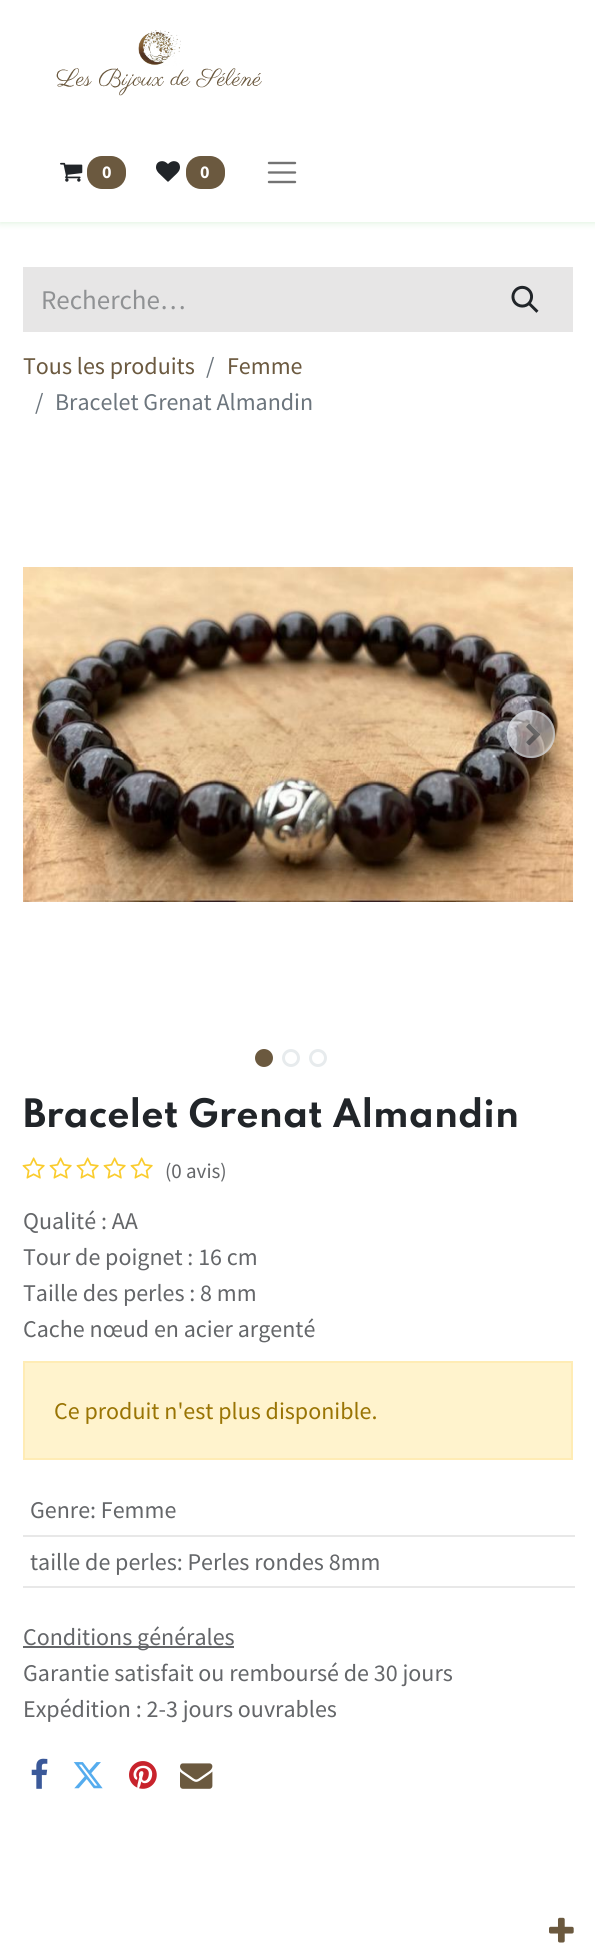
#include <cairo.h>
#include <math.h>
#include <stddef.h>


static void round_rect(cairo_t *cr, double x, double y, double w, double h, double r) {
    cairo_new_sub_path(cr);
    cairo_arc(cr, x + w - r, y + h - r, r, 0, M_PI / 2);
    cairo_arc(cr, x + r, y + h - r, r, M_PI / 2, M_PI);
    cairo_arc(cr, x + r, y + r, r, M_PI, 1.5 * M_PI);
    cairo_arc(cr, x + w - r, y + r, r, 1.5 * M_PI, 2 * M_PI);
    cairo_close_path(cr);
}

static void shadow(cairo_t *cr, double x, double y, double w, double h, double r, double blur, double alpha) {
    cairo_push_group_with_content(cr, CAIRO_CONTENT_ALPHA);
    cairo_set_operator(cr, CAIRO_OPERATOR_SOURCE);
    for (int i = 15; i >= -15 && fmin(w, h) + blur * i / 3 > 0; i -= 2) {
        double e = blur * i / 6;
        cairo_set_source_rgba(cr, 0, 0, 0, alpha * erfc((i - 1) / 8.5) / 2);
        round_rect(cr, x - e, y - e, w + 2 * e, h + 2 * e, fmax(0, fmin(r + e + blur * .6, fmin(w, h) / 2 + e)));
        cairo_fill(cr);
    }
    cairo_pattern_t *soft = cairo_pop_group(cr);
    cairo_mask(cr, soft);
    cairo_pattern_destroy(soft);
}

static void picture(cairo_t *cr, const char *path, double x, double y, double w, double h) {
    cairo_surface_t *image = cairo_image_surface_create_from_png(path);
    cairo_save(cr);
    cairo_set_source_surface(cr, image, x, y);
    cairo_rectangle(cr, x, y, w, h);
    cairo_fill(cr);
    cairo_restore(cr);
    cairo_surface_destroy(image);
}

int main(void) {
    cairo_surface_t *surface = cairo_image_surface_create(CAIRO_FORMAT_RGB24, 595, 1945);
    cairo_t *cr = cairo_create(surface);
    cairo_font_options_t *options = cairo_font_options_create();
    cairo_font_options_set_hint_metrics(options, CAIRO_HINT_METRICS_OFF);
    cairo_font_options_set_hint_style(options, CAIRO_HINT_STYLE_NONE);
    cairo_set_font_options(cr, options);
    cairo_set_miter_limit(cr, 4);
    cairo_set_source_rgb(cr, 1, 1, 1);
    cairo_paint(cr);
    cairo_save(cr);
    cairo_rectangle(cr, 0, 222, 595, 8);
    cairo_clip(cr);
    cairo_set_source_rgb(cr, 0.839, 0.937, 0.839);
    shadow(cr, 0, 0, 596, 222, 0, 4, 1);
    cairo_restore(cr);
    picture(cr, "img1.png", 56, 30, 206, 66);
    picture(cr, "img2.png", 60, 162, 23, 20);
    cairo_set_source_rgb(cr, 0.42, 0.349, 0.247);
    round_rect(cr, 87, 156, 39, 33, 15);
    cairo_fill(cr);
    cairo_select_font_face(cr, "Source Sans Pro", CAIRO_FONT_SLANT_NORMAL, CAIRO_FONT_WEIGHT_BOLD);
    cairo_set_font_size(cr, 18);
    cairo_set_source_rgb(cr, 1, 1, 1);
    cairo_move_to(cr, 102, 178);
    cairo_show_text(cr, "0");
    picture(cr, "img3.png", 156, 161, 24, 21);
    cairo_set_source_rgb(cr, 0.42, 0.349, 0.247);
    round_rect(cr, 186, 156, 39, 33, 15);
    cairo_fill(cr);
    cairo_set_source_rgb(cr, 1, 1, 1);
    cairo_move_to(cr, 200, 178);
    cairo_show_text(cr, "0");
    cairo_new_path(cr);
    cairo_move_to(cr, 269, 163);
    cairo_line_to(cr, 295, 163);
    cairo_move_to(cr, 269, 172.5);
    cairo_line_to(cr, 295, 172.5);
    cairo_move_to(cr, 269, 182);
    cairo_line_to(cr, 295, 182);
    cairo_set_source_rgb(cr, 0.451, 0.451, 0.451);
    cairo_set_line_width(cr, 2.4);
    cairo_set_line_cap(cr, CAIRO_LINE_CAP_ROUND);
    cairo_stroke(cr);
    cairo_set_source_rgb(cr, 0.906, 0.902, 0.902);
    cairo_rectangle(cr, 23, 267, 550, 65);
    cairo_fill(cr);
    cairo_select_font_face(cr, "Source Sans Pro", CAIRO_FONT_SLANT_NORMAL, CAIRO_FONT_WEIGHT_NORMAL);
    cairo_set_font_size(cr, 27);
    cairo_set_source_rgb(cr, 0.565, 0.573, 0.58);
    cairo_move_to(cr, 41, 309);
    cairo_show_text(cr, "Recherche…");
    picture(cr, "img4.png", 511, 285, 28, 28);
    cairo_set_font_size(cr, 24);
    cairo_set_source_rgb(cr, 0.42, 0.349, 0.247);
    cairo_move_to(cr, 23, 374);
    cairo_show_text(cr, "Tous les produits");
    cairo_set_source_rgb(cr, 0.424, 0.459, 0.49);
    cairo_move_to(cr, 206, 374);
    cairo_show_text(cr, "/");
    cairo_set_source_rgb(cr, 0.42, 0.349, 0.247);
    cairo_move_to(cr, 227, 374);
    cairo_show_text(cr, "Femme");
    cairo_set_source_rgb(cr, 0.424, 0.459, 0.49);
    cairo_move_to(cr, 35, 410);
    cairo_show_text(cr, "/");
    cairo_move_to(cr, 55, 410);
    cairo_show_text(cr, "Bracelet Grenat Almandin");
    picture(cr, "img5.png", 23, 567, 550, 335);
    cairo_set_source_rgba(cr, 1, 1, 1, 0.5);
    cairo_arc(cr, 531, 734, 24, 0, 2 * M_PI);
    cairo_fill(cr);
    cairo_arc(cr, 531, 734, 23, 0, 2 * M_PI);
    cairo_set_source_rgba(cr, 0.808, 0.831, 0.855, 0.5);
    cairo_set_line_width(cr, 2);
    cairo_set_line_cap(cr, CAIRO_LINE_CAP_BUTT);
    cairo_stroke(cr);
    picture(cr, "img6.png", 526, 723, 14, 23);
    cairo_set_source_rgb(cr, 0.42, 0.349, 0.247);
    cairo_arc(cr, 264, 1058, 7.5, 0, 2 * M_PI);
    cairo_fill_preserve(cr);
    cairo_set_line_width(cr, 3);
    cairo_stroke(cr);
    cairo_arc(cr, 291, 1058, 7.5, 0, 2 * M_PI);
    cairo_set_source_rgb(cr, 0.906, 0.918, 0.929);
    cairo_stroke(cr);
    cairo_arc(cr, 318, 1058, 7.5, 0, 2 * M_PI);
    cairo_stroke(cr);
    cairo_select_font_face(cr, "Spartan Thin", CAIRO_FONT_SLANT_NORMAL, CAIRO_FONT_WEIGHT_BOLD);
    cairo_set_font_size(cr, 34.75);
    cairo_set_source_rgb(cr, 0.129, 0.145, 0.161);
    cairo_move_to(cr, 23, 1127);
    cairo_show_text(cr, "Bracelet Grenat Almandin");
    picture(cr, "img7.png", 22, 1157, 23, 22);
    picture(cr, "img7.png", 49, 1157, 23, 22);
    picture(cr, "img7.png", 76, 1157, 23, 22);
    picture(cr, "img7.png", 103, 1157, 23, 22);
    picture(cr, "img7.png", 130, 1157, 23, 22);
    cairo_select_font_face(cr, "Source Sans Pro", CAIRO_FONT_SLANT_NORMAL, CAIRO_FONT_WEIGHT_NORMAL);
    cairo_set_font_size(cr, 21);
    cairo_set_source_rgb(cr, 0.392, 0.4, 0.412);
    cairo_move_to(cr, 165, 1178);
    cairo_show_text(cr, "(0 avis)");
    cairo_set_font_size(cr, 24);
    cairo_move_to(cr, 23, 1229);
    cairo_show_text(cr, "Qualité : AA");
    cairo_move_to(cr, 23, 1265);
    cairo_show_text(cr, "Tour de poignet : 16 cm");
    cairo_move_to(cr, 23, 1301);
    cairo_show_text(cr, "Taille des perles : 8 mm");
    cairo_move_to(cr, 23, 1337);
    cairo_show_text(cr, "Cache nœud en acier argenté");
    cairo_set_source_rgb(cr, 1, 0.953, 0.804);
    cairo_rectangle(cr, 24, 1362, 548, 97);
    cairo_fill_preserve(cr);
    cairo_set_source_rgb(cr, 1, 0.925, 0.71);
    cairo_set_line_width(cr, 2);
    cairo_stroke(cr);
    cairo_set_source_rgb(cr, 0.6, 0.455, 0.016);
    cairo_move_to(cr, 54, 1419);
    cairo_show_text(cr, "Ce produit n'est plus disponible.");
    cairo_set_source_rgb(cr, 0.91, 0.91, 0.91);
    cairo_rectangle(cr, 23, 1535, 552, 2);
    cairo_fill(cr);
    cairo_set_source_rgb(cr, 0.392, 0.4, 0.412);
    cairo_move_to(cr, 30, 1518);
    cairo_show_text(cr, "Genre: Femme");
    cairo_set_source_rgb(cr, 0.91, 0.91, 0.91);
    cairo_rectangle(cr, 23, 1586, 552, 2);
    cairo_fill(cr);
    cairo_set_source_rgb(cr, 0.392, 0.4, 0.412);
    cairo_move_to(cr, 30, 1570);
    cairo_show_text(cr, "taille de perles: Perles rondes 8mm");
    cairo_rectangle(cr, 23, 1646, 211, 2);
    cairo_fill(cr);
    cairo_move_to(cr, 23, 1645);
    cairo_show_text(cr, "Conditions générales");
    cairo_move_to(cr, 23, 1681);
    cairo_show_text(cr, "Garantie satisfait ou remboursé de 30 jours");
    cairo_move_to(cr, 23, 1717);
    cairo_show_text(cr, "Expédition : 2-3 jours ouvrables");
    picture(cr, "img8.png", 31, 1758, 17, 31);
    picture(cr, "img9.png", 73, 1762, 30, 27);
    picture(cr, "img10.png", 129, 1761, 28, 28);
    picture(cr, "img11.png", 180, 1763, 33, 26);
    picture(cr, "img12.png", 549, 1917, 25, 26);
    cairo_surface_write_to_png(surface, "page.png");
    cairo_font_options_destroy(options);
    cairo_destroy(cr);
    cairo_surface_destroy(surface);
    return 0;
}
